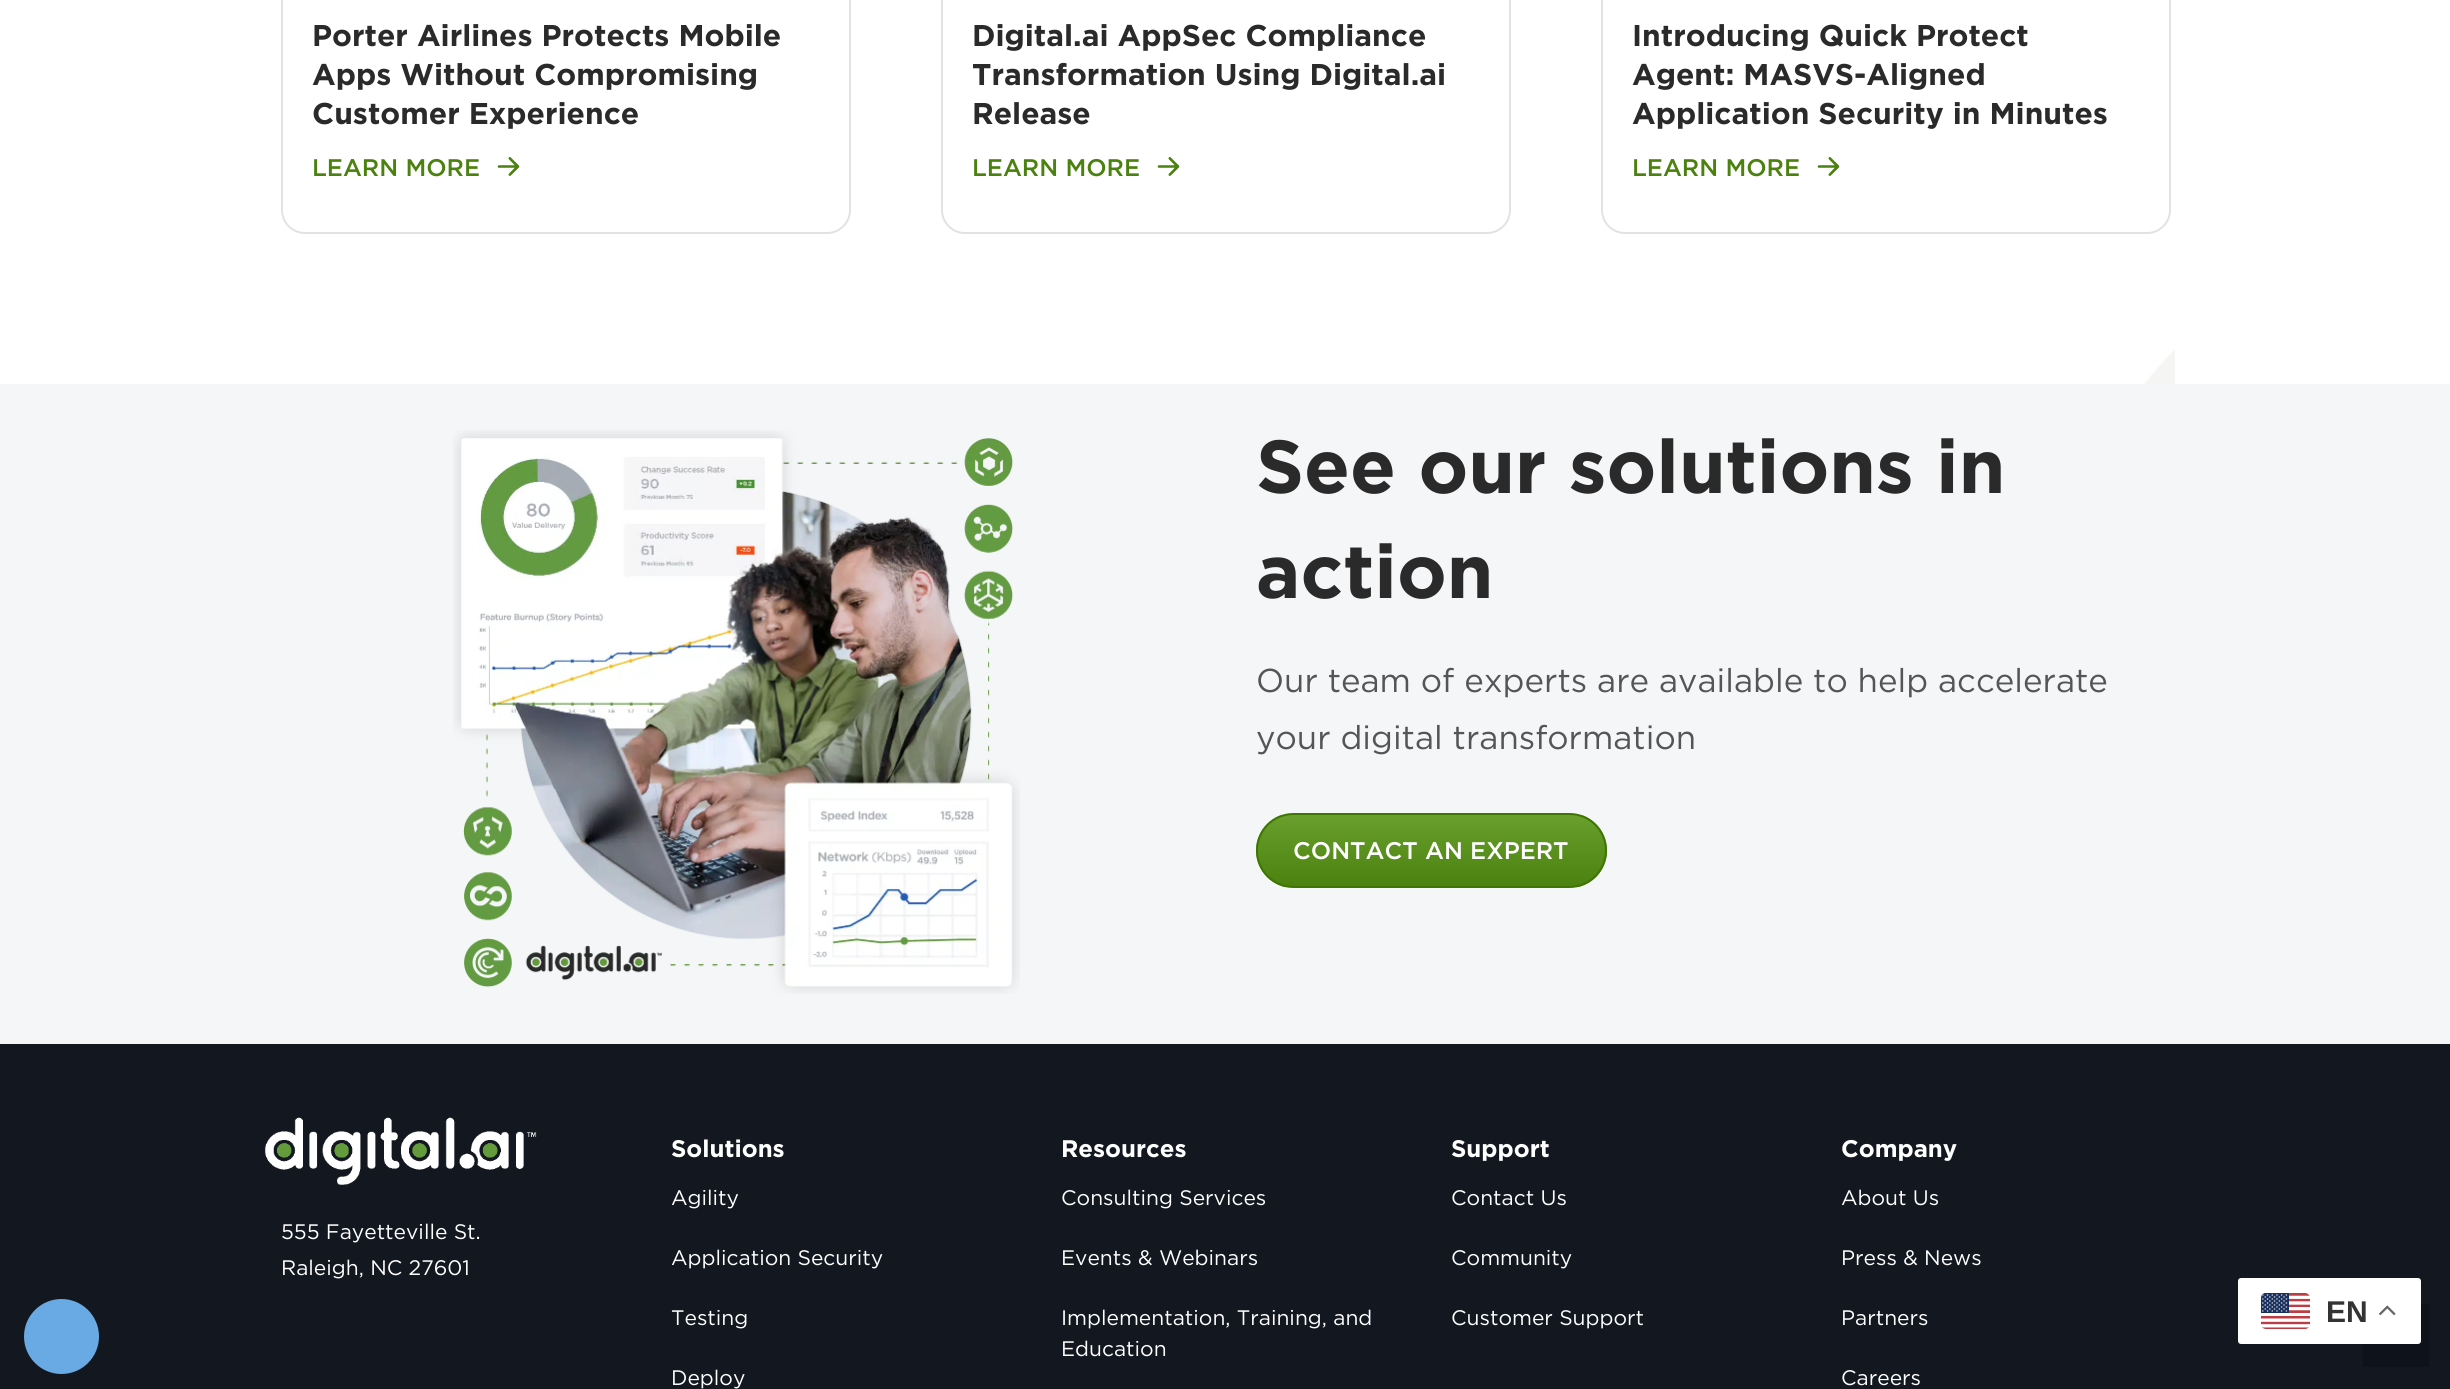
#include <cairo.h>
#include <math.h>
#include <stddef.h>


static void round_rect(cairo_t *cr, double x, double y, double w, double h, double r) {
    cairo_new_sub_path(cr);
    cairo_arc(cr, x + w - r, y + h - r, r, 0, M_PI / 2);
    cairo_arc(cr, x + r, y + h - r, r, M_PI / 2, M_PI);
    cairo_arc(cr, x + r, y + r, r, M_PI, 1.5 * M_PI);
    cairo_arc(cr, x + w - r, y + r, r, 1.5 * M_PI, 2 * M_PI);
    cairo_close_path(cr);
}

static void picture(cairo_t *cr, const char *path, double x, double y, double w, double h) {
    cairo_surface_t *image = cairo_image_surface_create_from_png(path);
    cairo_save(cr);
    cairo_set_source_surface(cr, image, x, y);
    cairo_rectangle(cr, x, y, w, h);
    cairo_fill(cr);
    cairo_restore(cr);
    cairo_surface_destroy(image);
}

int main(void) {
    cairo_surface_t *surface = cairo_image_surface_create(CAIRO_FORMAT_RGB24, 2450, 1389);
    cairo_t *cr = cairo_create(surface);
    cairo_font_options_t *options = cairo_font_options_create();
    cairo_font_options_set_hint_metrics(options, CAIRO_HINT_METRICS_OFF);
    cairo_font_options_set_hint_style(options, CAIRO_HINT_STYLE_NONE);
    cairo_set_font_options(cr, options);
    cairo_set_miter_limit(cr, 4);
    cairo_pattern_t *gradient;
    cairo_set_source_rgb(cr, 1, 1, 1);
    cairo_paint(cr);
    cairo_set_source_rgb(cr, 0.071, 0.09, 0.125);
    cairo_rectangle(cr, 0, 1044, 2450, 345);
    cairo_fill(cr);
    cairo_set_source_rgb(cr, 0.416, 0.667, 0.894);
    cairo_arc(cr, 61.5, 1336.5, 37.5, 0, 2 * M_PI);
    cairo_fill(cr);
    round_rect(cr, 282, -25, 568, 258, 23);
    cairo_set_source_rgb(cr, 0.886, 0.886, 0.886);
    cairo_stroke(cr);
    cairo_select_font_face(cr, "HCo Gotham", CAIRO_FONT_SLANT_NORMAL, CAIRO_FONT_WEIGHT_BOLD);
    cairo_set_font_size(cr, 30);
    cairo_set_source_rgb(cr, 0.165, 0.165, 0.165);
    cairo_move_to(cr, 312, 46);
    cairo_show_text(cr, "Porter Airlines Protects Mobile");
    cairo_move_to(cr, 312, 85);
    cairo_show_text(cr, "Apps Without Compromising");
    cairo_move_to(cr, 312, 124);
    cairo_show_text(cr, "Customer Experience");
    cairo_select_font_face(cr, "HCo Gotham Medium", CAIRO_FONT_SLANT_NORMAL, CAIRO_FONT_WEIGHT_NORMAL);
    cairo_set_font_size(cr, 24);
    cairo_set_source_rgb(cr, 0.294, 0.506, 0.055);
    cairo_move_to(cr, 312, 176);
    cairo_show_text(cr, "LEARN MORE");
    picture(cr, "img1.png", 497, 157, 23, 19);
    round_rect(cr, 942, -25, 568, 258, 23);
    cairo_set_source_rgb(cr, 0.886, 0.886, 0.886);
    cairo_stroke(cr);
    cairo_select_font_face(cr, "HCo Gotham", CAIRO_FONT_SLANT_NORMAL, CAIRO_FONT_WEIGHT_BOLD);
    cairo_set_font_size(cr, 30);
    cairo_set_source_rgb(cr, 0.165, 0.165, 0.165);
    cairo_move_to(cr, 972, 46);
    cairo_show_text(cr, "Digital.ai AppSec Compliance");
    cairo_move_to(cr, 972, 85);
    cairo_show_text(cr, "Transformation Using Digital.ai");
    cairo_move_to(cr, 972, 124);
    cairo_show_text(cr, "Release");
    cairo_select_font_face(cr, "HCo Gotham Medium", CAIRO_FONT_SLANT_NORMAL, CAIRO_FONT_WEIGHT_NORMAL);
    cairo_set_font_size(cr, 24);
    cairo_set_source_rgb(cr, 0.294, 0.506, 0.055);
    cairo_move_to(cr, 972, 176);
    cairo_show_text(cr, "LEARN MORE");
    picture(cr, "img2.png", 1157, 157, 23, 19);
    round_rect(cr, 1602, -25, 568, 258, 23);
    cairo_set_source_rgb(cr, 0.886, 0.886, 0.886);
    cairo_stroke(cr);
    cairo_select_font_face(cr, "HCo Gotham", CAIRO_FONT_SLANT_NORMAL, CAIRO_FONT_WEIGHT_BOLD);
    cairo_set_font_size(cr, 30);
    cairo_set_source_rgb(cr, 0.165, 0.165, 0.165);
    cairo_move_to(cr, 1632, 46);
    cairo_show_text(cr, "Introducing Quick Protect");
    cairo_move_to(cr, 1632, 85);
    cairo_show_text(cr, "Agent: MASVS-Aligned");
    cairo_move_to(cr, 1632, 124);
    cairo_show_text(cr, "Application Security in Minutes");
    cairo_select_font_face(cr, "HCo Gotham Medium", CAIRO_FONT_SLANT_NORMAL, CAIRO_FONT_WEIGHT_NORMAL);
    cairo_set_font_size(cr, 24);
    cairo_set_source_rgb(cr, 0.294, 0.506, 0.055);
    cairo_move_to(cr, 1632, 176);
    cairo_show_text(cr, "LEARN MORE");
    picture(cr, "img2.png", 1817, 157, 23, 19);
    picture(cr, "img3.png", 2143, 349, 32, 35);
    cairo_set_source_rgb(cr, 0.957, 0.961, 0.965);
    cairo_rectangle(cr, 0, 384, 2450, 660);
    cairo_fill(cr);
    picture(cr, "img4.png", 453, 430, 567, 564);
    cairo_select_font_face(cr, "HCo Gotham", CAIRO_FONT_SLANT_NORMAL, CAIRO_FONT_WEIGHT_BOLD);
    cairo_set_font_size(cr, 75);
    cairo_set_source_rgb(cr, 0.165, 0.165, 0.165);
    cairo_move_to(cr, 1256, 493);
    cairo_show_text(cr, "See our solutions in");
    cairo_move_to(cr, 1256, 598);
    cairo_show_text(cr, "action");
    cairo_select_font_face(cr, "HCo Gotham", CAIRO_FONT_SLANT_NORMAL, CAIRO_FONT_WEIGHT_NORMAL);
    cairo_set_font_size(cr, 33);
    cairo_set_source_rgb(cr, 0.333, 0.333, 0.333);
    cairo_move_to(cr, 1256, 692);
    cairo_show_text(cr, "Our team of experts are available to help accelerate");
    cairo_move_to(cr, 1256, 749);
    cairo_show_text(cr, "your digital transformation");
    cairo_save(cr);
    round_rect(cr, 1256, 813, 351, 75, 37.5);
    cairo_clip(cr);
    gradient = cairo_pattern_create_linear(1431, 815, 1431, 887);
    cairo_pattern_add_color_stop_rgba(gradient, 0, 0.412, 0.624, 0.173, 1);
    cairo_pattern_add_color_stop_rgba(gradient, 1, 0.294, 0.506, 0.055, 1);
    cairo_set_source(cr, gradient);
    cairo_pattern_destroy(gradient);
    cairo_rectangle(cr, 1256, 815, 351, 72);
    cairo_fill(cr);
    cairo_restore(cr);
    round_rect(cr, 1257, 814, 349, 73, 36.5);
    cairo_set_source_rgb(cr, 0.247, 0.459, 0.008);
    cairo_stroke(cr);
    cairo_select_font_face(cr, "HCo Gotham Medium", CAIRO_FONT_SLANT_NORMAL, CAIRO_FONT_WEIGHT_NORMAL);
    cairo_set_font_size(cr, 24);
    cairo_set_source_rgb(cr, 1, 1, 1);
    cairo_move_to(cr, 1293, 859);
    cairo_show_text(cr, "CONTACT AN EXPERT");
    picture(cr, "img5.png", 264, 1117, 273, 68);
    cairo_select_font_face(cr, "HCo Gotham", CAIRO_FONT_SLANT_NORMAL, CAIRO_FONT_WEIGHT_NORMAL);
    cairo_set_font_size(cr, 21);
    cairo_move_to(cr, 281, 1239);
    cairo_show_text(cr, "555 Fayetteville St.");
    cairo_move_to(cr, 281, 1275);
    cairo_show_text(cr, "Raleigh, NC 27601");
    cairo_select_font_face(cr, "HCo Gotham", CAIRO_FONT_SLANT_NORMAL, CAIRO_FONT_WEIGHT_BOLD);
    cairo_set_font_size(cr, 24);
    cairo_move_to(cr, 671, 1157);
    cairo_show_text(cr, "Solutions");
    cairo_select_font_face(cr, "HCo Gotham", CAIRO_FONT_SLANT_NORMAL, CAIRO_FONT_WEIGHT_NORMAL);
    cairo_set_font_size(cr, 21);
    cairo_move_to(cr, 671, 1205);
    cairo_show_text(cr, "Agility");
    cairo_move_to(cr, 671, 1265);
    cairo_show_text(cr, "Application Security");
    cairo_move_to(cr, 671, 1325);
    cairo_show_text(cr, "Testing");
    cairo_move_to(cr, 671, 1385);
    cairo_show_text(cr, "Deploy");
    cairo_select_font_face(cr, "HCo Gotham", CAIRO_FONT_SLANT_NORMAL, CAIRO_FONT_WEIGHT_BOLD);
    cairo_set_font_size(cr, 24);
    cairo_move_to(cr, 1061, 1157);
    cairo_show_text(cr, "Resources");
    cairo_select_font_face(cr, "HCo Gotham", CAIRO_FONT_SLANT_NORMAL, CAIRO_FONT_WEIGHT_NORMAL);
    cairo_set_font_size(cr, 21);
    cairo_move_to(cr, 1061, 1205);
    cairo_show_text(cr, "Consulting Services");
    cairo_move_to(cr, 1061, 1265);
    cairo_show_text(cr, "Events & Webinars");
    cairo_move_to(cr, 1061, 1325);
    cairo_show_text(cr, "Implementation, Training, and");
    cairo_move_to(cr, 1061, 1356);
    cairo_show_text(cr, "Education");
    cairo_select_font_face(cr, "HCo Gotham", CAIRO_FONT_SLANT_NORMAL, CAIRO_FONT_WEIGHT_BOLD);
    cairo_set_font_size(cr, 24);
    cairo_move_to(cr, 1451, 1157);
    cairo_show_text(cr, "Support");
    cairo_select_font_face(cr, "HCo Gotham", CAIRO_FONT_SLANT_NORMAL, CAIRO_FONT_WEIGHT_NORMAL);
    cairo_set_font_size(cr, 21);
    cairo_move_to(cr, 1451, 1205);
    cairo_show_text(cr, "Contact Us");
    cairo_move_to(cr, 1451, 1265);
    cairo_show_text(cr, "Community");
    cairo_move_to(cr, 1451, 1325);
    cairo_show_text(cr, "Customer Support");
    cairo_select_font_face(cr, "HCo Gotham", CAIRO_FONT_SLANT_NORMAL, CAIRO_FONT_WEIGHT_BOLD);
    cairo_set_font_size(cr, 24);
    cairo_move_to(cr, 1841, 1157);
    cairo_show_text(cr, "Company");
    cairo_select_font_face(cr, "HCo Gotham", CAIRO_FONT_SLANT_NORMAL, CAIRO_FONT_WEIGHT_NORMAL);
    cairo_set_font_size(cr, 21);
    cairo_move_to(cr, 1841, 1205);
    cairo_show_text(cr, "About Us");
    cairo_move_to(cr, 1841, 1265);
    cairo_show_text(cr, "Press & News");
    cairo_move_to(cr, 1841, 1325);
    cairo_show_text(cr, "Partners");
    cairo_move_to(cr, 1841, 1385);
    cairo_show_text(cr, "Careers");
    cairo_set_source_rgb(cr, 0.055, 0.071, 0.102);
    cairo_rectangle(cr, 2363, 1304, 66, 63);
    cairo_fill(cr);
    cairo_set_source_rgb(cr, 1, 1, 1);
    round_rect(cr, 2238, 1278, 183, 66, 3);
    cairo_fill(cr);
    picture(cr, "img6.png", 2261, 1293, 49, 36);
    cairo_select_font_face(cr, "Liberation Sans", CAIRO_FONT_SLANT_NORMAL, CAIRO_FONT_WEIGHT_BOLD);
    cairo_set_font_size(cr, 30);
    cairo_set_source_rgb(cr, 0.2, 0.2, 0.2);
    cairo_move_to(cr, 2326, 1322);
    cairo_show_text(cr, "EN");
    picture(cr, "img7.png", 2379, 1305, 17, 11);
    cairo_surface_write_to_png(surface, "page.png");
    cairo_font_options_destroy(options);
    cairo_destroy(cr);
    cairo_surface_destroy(surface);
    return 0;
}
